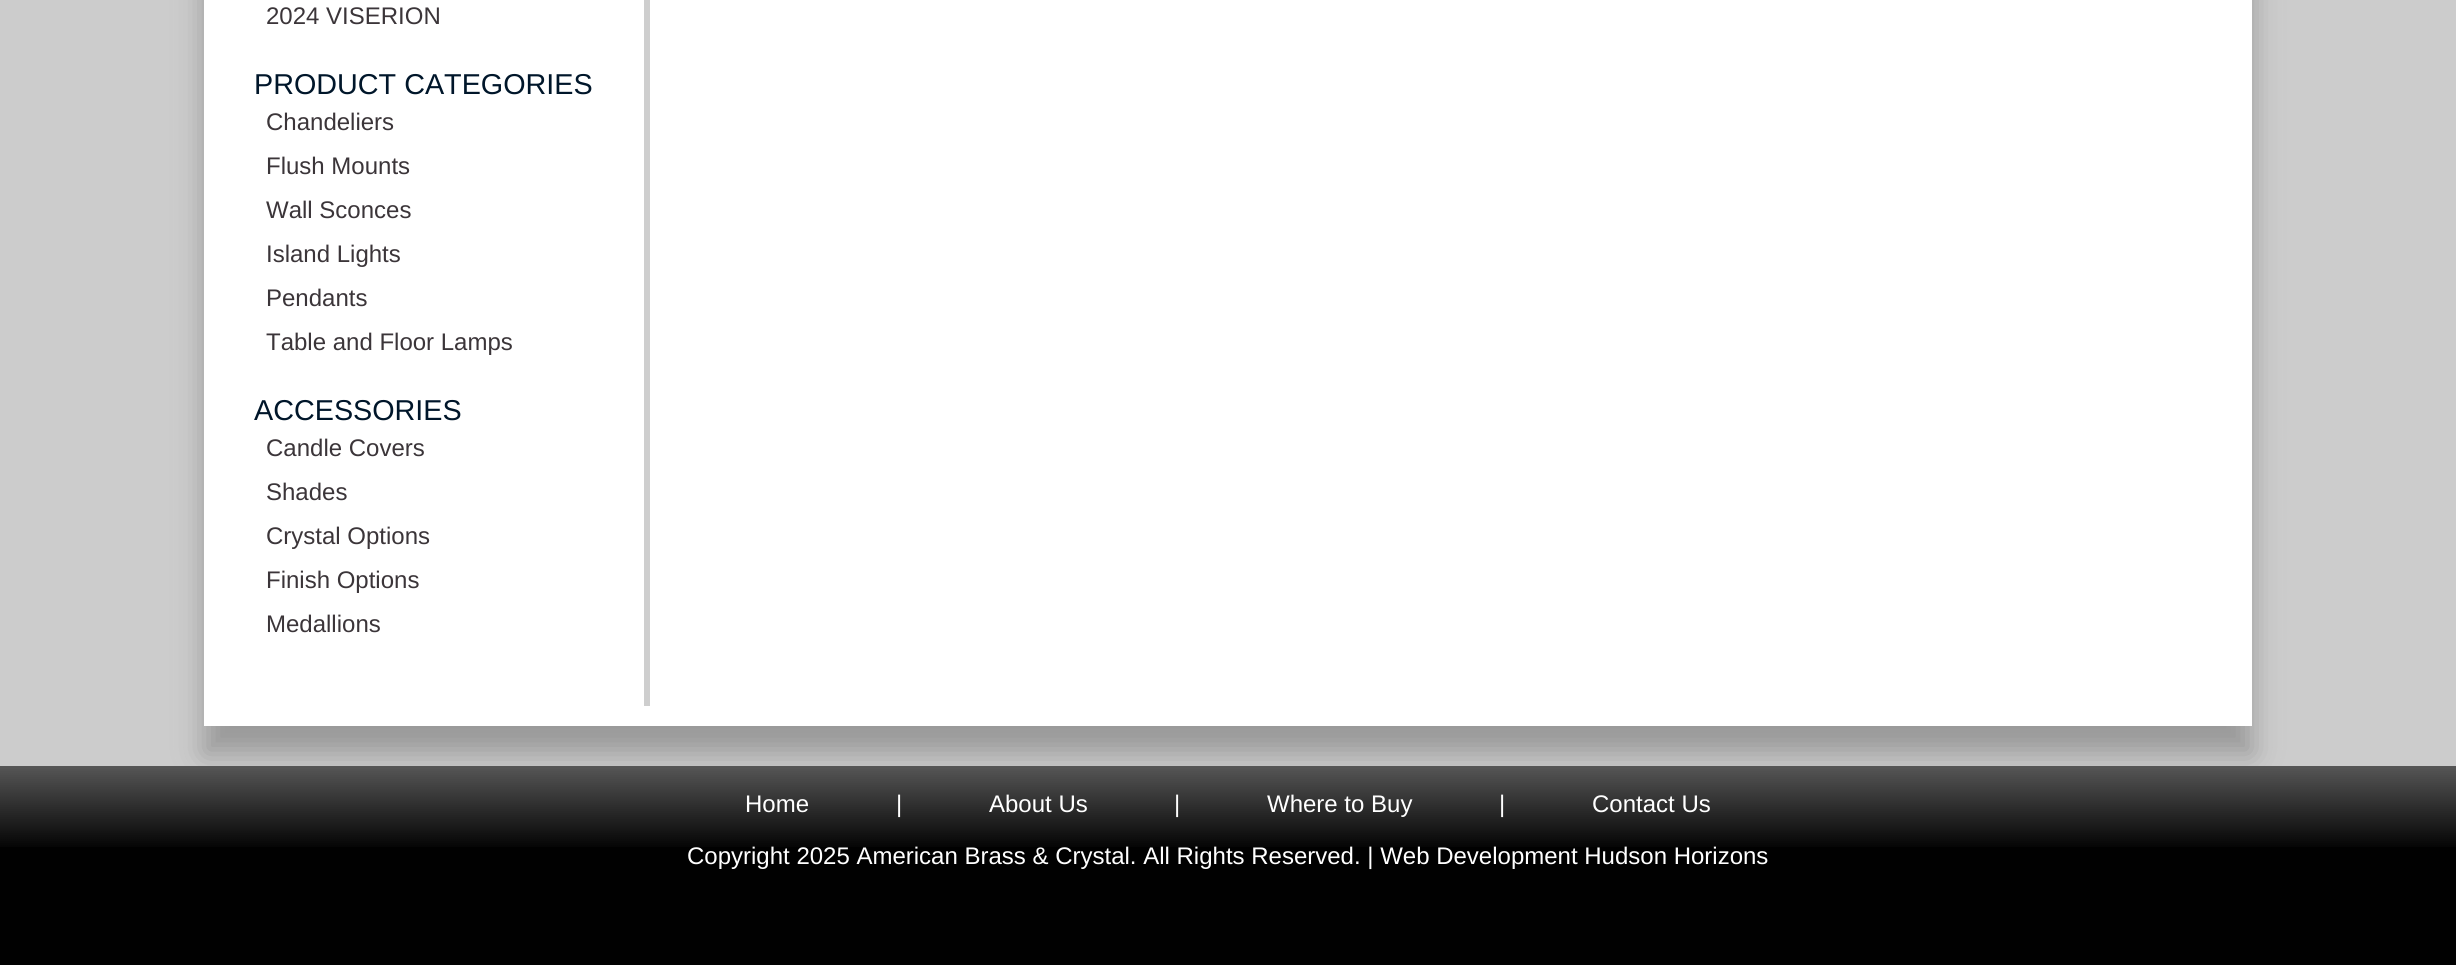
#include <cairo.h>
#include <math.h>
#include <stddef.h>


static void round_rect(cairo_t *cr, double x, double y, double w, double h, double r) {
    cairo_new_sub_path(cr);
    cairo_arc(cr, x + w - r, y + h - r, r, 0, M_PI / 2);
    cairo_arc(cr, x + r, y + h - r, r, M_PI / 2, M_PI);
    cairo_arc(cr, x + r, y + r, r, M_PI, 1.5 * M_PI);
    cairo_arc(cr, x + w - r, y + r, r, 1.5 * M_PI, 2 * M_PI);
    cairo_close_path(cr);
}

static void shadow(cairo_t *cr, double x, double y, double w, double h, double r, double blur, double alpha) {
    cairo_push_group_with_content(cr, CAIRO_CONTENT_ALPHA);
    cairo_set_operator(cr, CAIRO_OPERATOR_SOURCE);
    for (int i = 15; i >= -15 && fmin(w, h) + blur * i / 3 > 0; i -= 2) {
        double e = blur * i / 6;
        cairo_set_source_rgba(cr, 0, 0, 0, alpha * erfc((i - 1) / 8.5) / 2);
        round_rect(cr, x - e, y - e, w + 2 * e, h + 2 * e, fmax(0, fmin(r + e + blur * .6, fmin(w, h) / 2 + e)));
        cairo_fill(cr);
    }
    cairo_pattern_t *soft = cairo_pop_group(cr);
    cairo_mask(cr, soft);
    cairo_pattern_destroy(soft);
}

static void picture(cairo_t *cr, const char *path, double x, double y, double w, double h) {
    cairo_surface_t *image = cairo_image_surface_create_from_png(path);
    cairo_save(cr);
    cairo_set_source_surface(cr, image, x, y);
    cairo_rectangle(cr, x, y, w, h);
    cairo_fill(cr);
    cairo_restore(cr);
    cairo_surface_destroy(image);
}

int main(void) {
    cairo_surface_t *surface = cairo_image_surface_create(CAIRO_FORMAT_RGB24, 2456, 965);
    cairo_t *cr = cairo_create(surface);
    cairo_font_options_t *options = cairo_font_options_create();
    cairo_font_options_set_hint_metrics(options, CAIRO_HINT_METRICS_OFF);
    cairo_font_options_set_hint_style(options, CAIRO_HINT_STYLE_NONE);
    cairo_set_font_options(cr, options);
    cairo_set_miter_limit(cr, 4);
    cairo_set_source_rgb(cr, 0.8, 0.8, 0.8);
    cairo_paint(cr);
    cairo_set_source_rgb(cr, 0.6, 0.6, 0.6);
    shadow(cr, 204, -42, 2048, 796, 0, 14, 1);
    cairo_set_source_rgb(cr, 1, 1, 1);
    cairo_rectangle(cr, 204, 0, 2048, 726);
    cairo_fill(cr);
    cairo_set_source_rgb(cr, 0.808, 0.808, 0.808);
    cairo_rectangle(cr, 644, 0, 6, 706);
    cairo_fill(cr);
    cairo_select_font_face(cr, "Liberation Sans", CAIRO_FONT_SLANT_NORMAL, CAIRO_FONT_WEIGHT_NORMAL);
    cairo_set_font_size(cr, 24);
    cairo_set_source_rgb(cr, 0.231, 0.208, 0.224);
    cairo_move_to(cr, 266, 24);
    cairo_show_text(cr, "2024 VISERION");
    cairo_set_font_size(cr, 28.75);
    cairo_set_source_rgb(cr, 0, 0.086, 0.165);
    cairo_move_to(cr, 254, 94);
    cairo_show_text(cr, "PRODUCT CATEGORIES");
    cairo_set_font_size(cr, 24);
    cairo_set_source_rgb(cr, 0.231, 0.208, 0.224);
    cairo_move_to(cr, 266, 130);
    cairo_show_text(cr, "Chandeliers");
    cairo_move_to(cr, 266, 174);
    cairo_show_text(cr, "Flush Mounts");
    cairo_move_to(cr, 266, 218);
    cairo_show_text(cr, "Wall Sconces");
    cairo_move_to(cr, 266, 262);
    cairo_show_text(cr, "Island Lights");
    cairo_move_to(cr, 266, 306);
    cairo_show_text(cr, "Pendants");
    cairo_move_to(cr, 266, 350);
    cairo_show_text(cr, "Table and Floor Lamps");
    cairo_set_font_size(cr, 28.75);
    cairo_set_source_rgb(cr, 0, 0.086, 0.165);
    cairo_move_to(cr, 254, 420);
    cairo_show_text(cr, "ACCESSORIES");
    cairo_set_font_size(cr, 24);
    cairo_set_source_rgb(cr, 0.231, 0.208, 0.224);
    cairo_move_to(cr, 266, 456);
    cairo_show_text(cr, "Candle Covers");
    cairo_move_to(cr, 266, 500);
    cairo_show_text(cr, "Shades");
    cairo_move_to(cr, 266, 544);
    cairo_show_text(cr, "Crystal Options");
    cairo_move_to(cr, 266, 588);
    cairo_show_text(cr, "Finish Options");
    cairo_move_to(cr, 266, 632);
    cairo_show_text(cr, "Medallions");
    cairo_set_source_rgb(cr, 0.004, 0.004, 0.004);
    cairo_rectangle(cr, 0, 847, 2456, 118);
    cairo_fill(cr);
    picture(cr, "img1.png", 0, 766, 2456, 81);
    cairo_set_source_rgb(cr, 1, 1, 1);
    cairo_move_to(cr, 745, 812);
    cairo_show_text(cr, "Home");
    cairo_move_to(cr, 896, 812);
    cairo_show_text(cr, "|");
    cairo_move_to(cr, 989, 812);
    cairo_show_text(cr, "About Us");
    cairo_move_to(cr, 1174, 812);
    cairo_show_text(cr, "|");
    cairo_move_to(cr, 1267, 812);
    cairo_show_text(cr, "Where to Buy");
    cairo_move_to(cr, 1499, 812);
    cairo_show_text(cr, "|");
    cairo_move_to(cr, 1592, 812);
    cairo_show_text(cr, "Contact Us");
    cairo_move_to(cr, 687, 864);
    cairo_show_text(cr, "Copyright 2025 American Brass & Crystal. All Rights Reserved. | Web Development Hudson Horizons");
    cairo_surface_write_to_png(surface, "page.png");
    cairo_font_options_destroy(options);
    cairo_destroy(cr);
    cairo_surface_destroy(surface);
    return 0;
}
